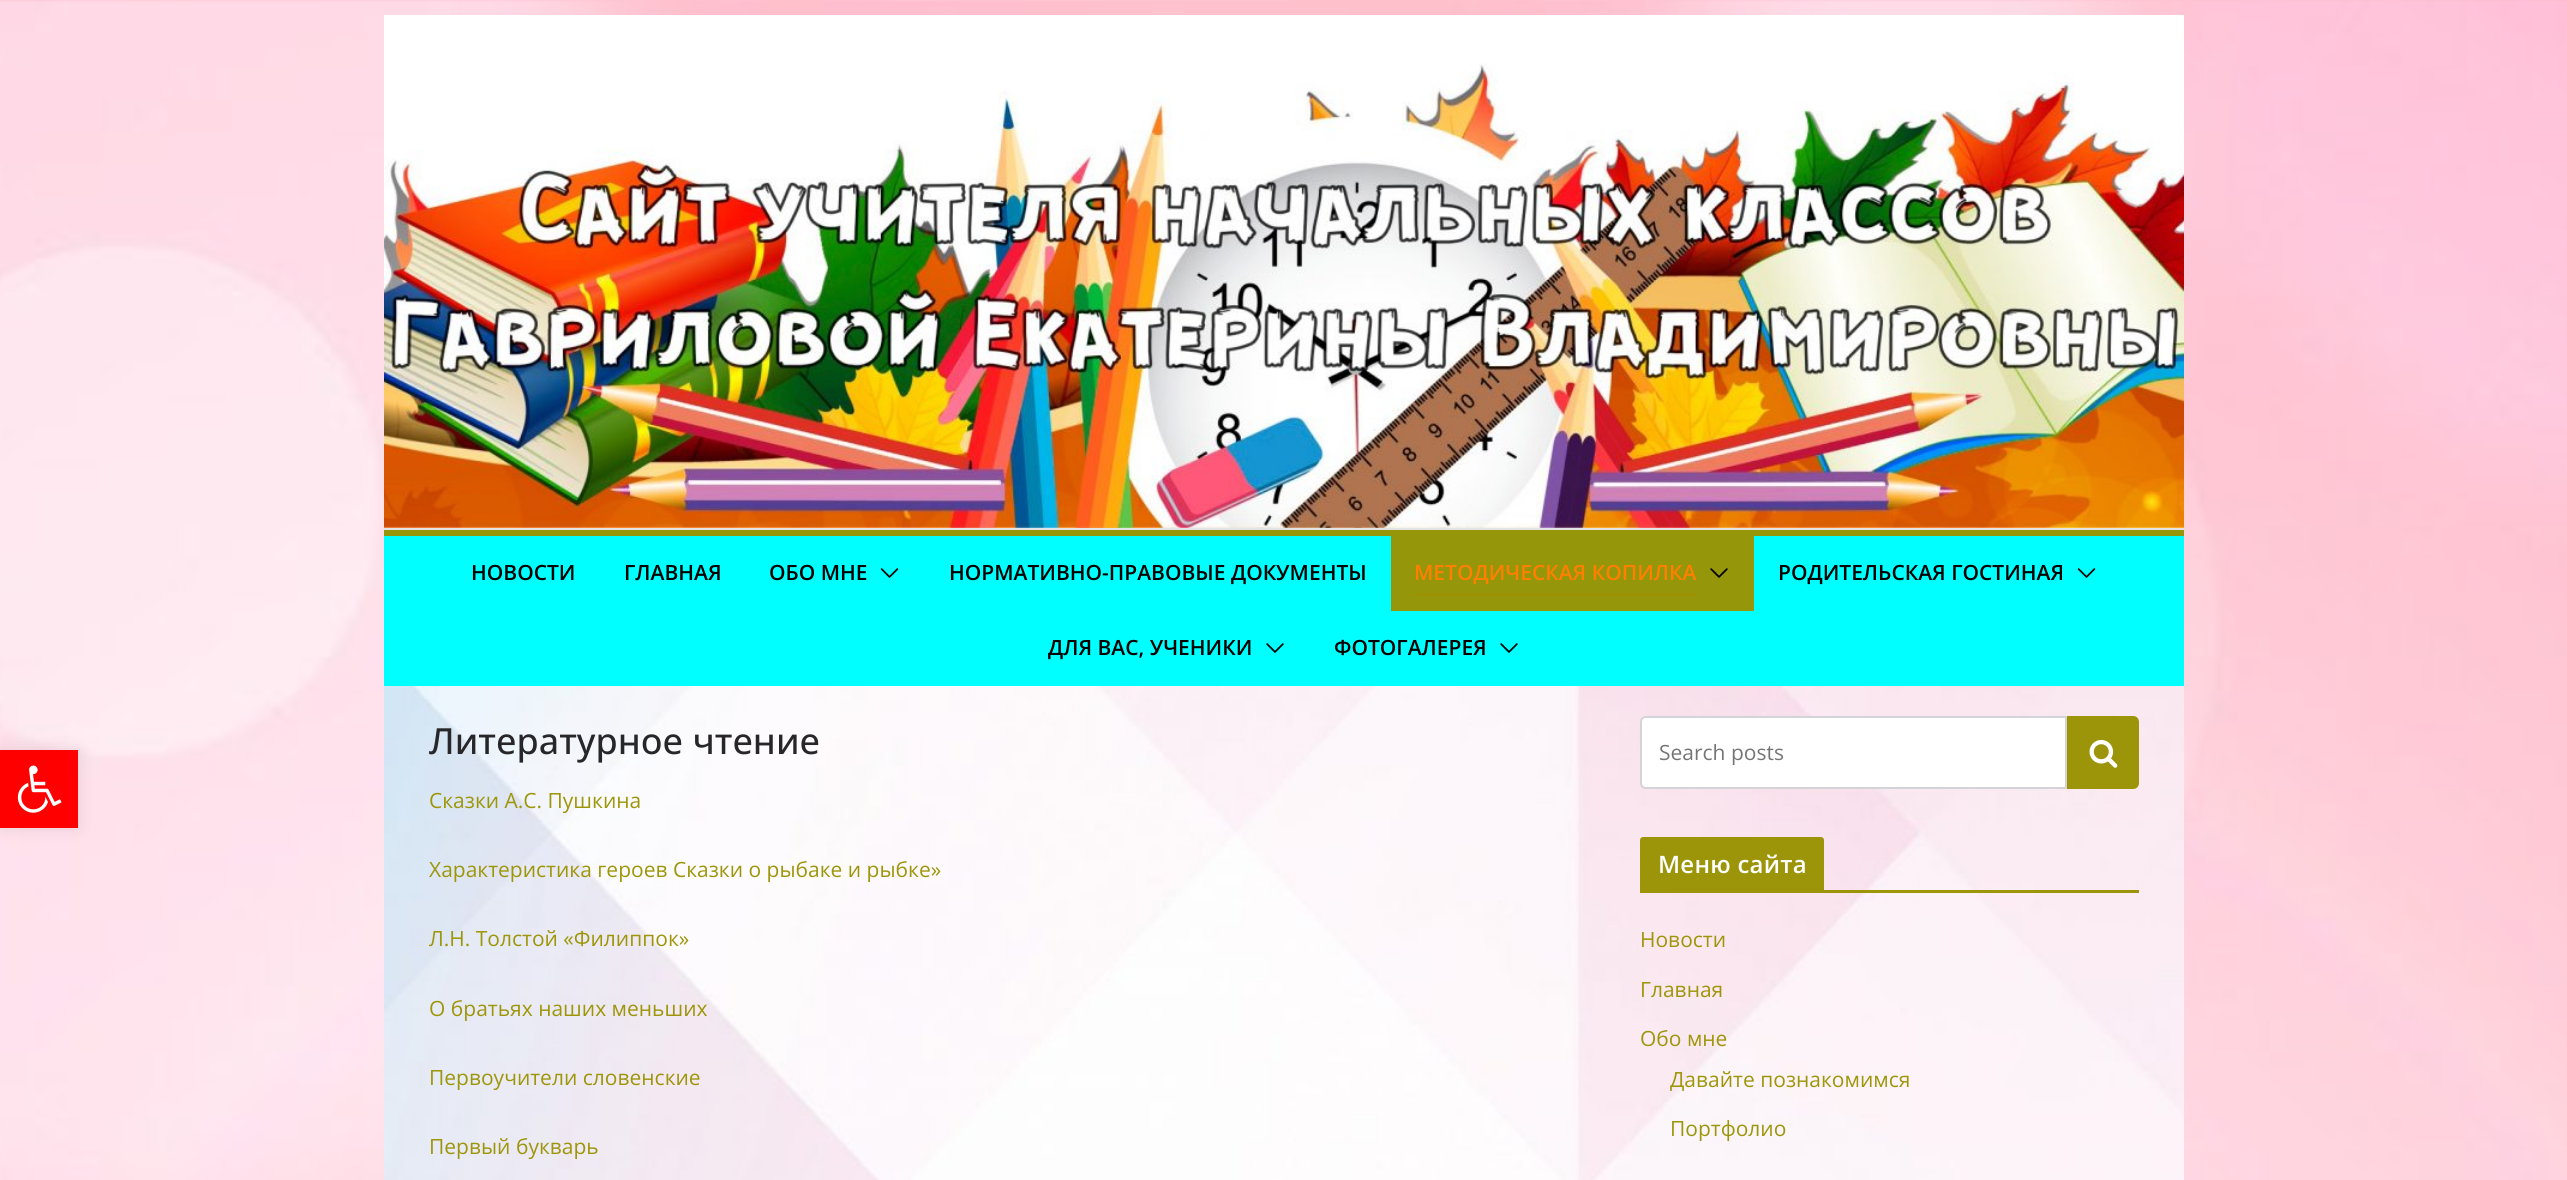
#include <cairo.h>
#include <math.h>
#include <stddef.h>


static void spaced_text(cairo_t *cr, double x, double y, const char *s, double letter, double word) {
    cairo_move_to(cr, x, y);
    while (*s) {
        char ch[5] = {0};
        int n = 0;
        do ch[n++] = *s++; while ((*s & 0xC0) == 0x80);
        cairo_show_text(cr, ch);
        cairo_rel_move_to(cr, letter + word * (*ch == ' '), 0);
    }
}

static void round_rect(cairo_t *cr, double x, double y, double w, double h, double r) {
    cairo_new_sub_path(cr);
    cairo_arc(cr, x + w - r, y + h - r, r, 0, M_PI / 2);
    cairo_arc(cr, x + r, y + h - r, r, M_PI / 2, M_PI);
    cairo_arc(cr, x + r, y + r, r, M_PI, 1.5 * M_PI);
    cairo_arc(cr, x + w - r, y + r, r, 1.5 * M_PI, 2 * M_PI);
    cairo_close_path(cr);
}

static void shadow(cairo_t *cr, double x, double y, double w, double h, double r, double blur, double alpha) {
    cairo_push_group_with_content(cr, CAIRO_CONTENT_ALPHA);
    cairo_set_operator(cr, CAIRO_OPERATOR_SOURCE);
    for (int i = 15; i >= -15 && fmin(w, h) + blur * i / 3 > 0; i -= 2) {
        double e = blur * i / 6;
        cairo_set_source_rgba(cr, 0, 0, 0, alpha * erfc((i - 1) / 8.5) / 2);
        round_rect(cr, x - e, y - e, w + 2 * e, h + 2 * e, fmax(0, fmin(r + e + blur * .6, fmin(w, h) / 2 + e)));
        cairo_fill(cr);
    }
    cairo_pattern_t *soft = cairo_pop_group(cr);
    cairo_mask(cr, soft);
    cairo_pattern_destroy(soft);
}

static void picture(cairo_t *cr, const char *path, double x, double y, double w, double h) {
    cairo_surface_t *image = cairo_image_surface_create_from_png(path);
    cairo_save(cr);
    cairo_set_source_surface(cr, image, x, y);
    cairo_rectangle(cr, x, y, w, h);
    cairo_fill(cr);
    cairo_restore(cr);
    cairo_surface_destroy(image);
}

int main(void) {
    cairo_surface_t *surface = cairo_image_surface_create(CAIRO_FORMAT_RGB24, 2567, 1180);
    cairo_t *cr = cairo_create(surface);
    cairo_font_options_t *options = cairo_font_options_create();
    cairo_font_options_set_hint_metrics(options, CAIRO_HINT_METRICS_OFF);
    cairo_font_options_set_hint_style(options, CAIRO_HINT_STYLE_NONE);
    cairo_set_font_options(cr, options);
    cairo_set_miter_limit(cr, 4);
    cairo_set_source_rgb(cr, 1, 1, 1);
    cairo_paint(cr);
    picture(cr, "img1.png", 0, 0, 2567, 1180);
    cairo_set_source_rgb(cr, 0, 0, 0);
    shadow(cr, 0, 750, 78, 78, 0, 7.5, 0.1);
    cairo_set_source_rgb(cr, 1, 0, 0);
    cairo_rectangle(cr, 0, 750, 78, 78);
    cairo_fill(cr);
    picture(cr, "img2.png", 17, 765, 45, 48);
    cairo_set_source_rgb(cr, 1, 1, 1);
    cairo_rectangle(cr, 384, 15, 1800, 48);
    cairo_fill(cr);
    picture(cr, "img3.png", 384, 63, 1800, 465);
    cairo_set_source_rgb(cr, 0.894, 0.894, 0.906);
    cairo_rectangle(cr, 384, 528, 1800, 2);
    cairo_fill(cr);
    cairo_set_source_rgb(cr, 0, 1, 1);
    cairo_rectangle(cr, 384, 536, 1800, 150);
    cairo_fill(cr);
    cairo_set_source_rgb(cr, 0.588, 0.588, 0.043);
    cairo_rectangle(cr, 384, 530, 1800, 6);
    cairo_fill(cr);
    cairo_select_font_face(cr, "Open Sans SemiBold", CAIRO_FONT_SLANT_NORMAL, CAIRO_FONT_WEIGHT_NORMAL);
    cairo_set_font_size(cr, 21);
    cairo_set_source_rgb(cr, 0, 0, 0);
    cairo_move_to(cr, 471, 580);
    cairo_show_text(cr, "НОВОСТИ");
    cairo_move_to(cr, 624, 580);
    cairo_show_text(cr, "ГЛАВНАЯ");
    cairo_move_to(cr, 769, 580);
    cairo_show_text(cr, "ОБО МНЕ");
    picture(cr, "img4.png", 880, 568, 19, 10);
    cairo_move_to(cr, 949, 580);
    cairo_show_text(cr, "НОРМАТИВНО-ПРАВОВЫЕ ДОКУМЕНТЫ");
    cairo_set_source_rgb(cr, 0.588, 0.588, 0.043);
    cairo_rectangle(cr, 1391, 536, 363, 75);
    cairo_fill(cr);
    cairo_set_source_rgb(cr, 0.608, 0.576, 0.012);
    cairo_rectangle(cr, 1415, 593, 282, 3);
    cairo_fill(cr);
    cairo_set_source_rgb(cr, 1, 0.498, 0);
    cairo_move_to(cr, 1414, 580);
    cairo_show_text(cr, "МЕТОДИЧЕСКАЯ КОПИЛКА");
    picture(cr, "img5.png", 1710, 568, 18, 10);
    cairo_set_source_rgb(cr, 0, 0, 0);
    cairo_move_to(cr, 1778, 580);
    cairo_show_text(cr, "РОДИТЕЛЬСКАЯ ГОСТИНАЯ");
    picture(cr, "img4.png", 2077, 568, 19, 10);
    cairo_move_to(cr, 1048, 655);
    cairo_show_text(cr, "ДЛЯ ВАС, УЧЕНИКИ");
    picture(cr, "img6.png", 1266, 643, 18, 10);
    cairo_move_to(cr, 1334, 655);
    cairo_show_text(cr, "ФОТОГАЛЕРЕЯ");
    picture(cr, "img6.png", 1500, 643, 18, 10);
    picture(cr, "img7.png", 384, 686, 1800, 494);
    cairo_select_font_face(cr, "Open Sans Medium", CAIRO_FONT_SLANT_NORMAL, CAIRO_FONT_WEIGHT_NORMAL);
    cairo_set_font_size(cr, 36);
    cairo_set_source_rgb(cr, 0.153, 0.153, 0.165);
    cairo_move_to(cr, 429, 754);
    cairo_show_text(cr, "Литературное чтение");
    cairo_select_font_face(cr, "Open Sans", CAIRO_FONT_SLANT_NORMAL, CAIRO_FONT_WEIGHT_NORMAL);
    cairo_set_font_size(cr, 21);
    cairo_set_source_rgb(cr, 0.62, 0.588, 0.039);
    cairo_move_to(cr, 429, 808);
    cairo_show_text(cr, "Сказки А.С. Пушкина");
    cairo_move_to(cr, 429, 877);
    cairo_show_text(cr, "Характеристика героев Сказки о рыбаке и рыбке»");
    cairo_move_to(cr, 429, 946);
    cairo_show_text(cr, "Л.Н. Толстой «Филиппок»");
    cairo_move_to(cr, 429, 1016);
    cairo_show_text(cr, "О братьях наших меньших");
    cairo_move_to(cr, 429, 1085);
    cairo_show_text(cr, "Первоучители словенские");
    cairo_move_to(cr, 429, 1154);
    cairo_show_text(cr, "Первый букварь");
    cairo_set_source_rgb(cr, 1, 1, 1);
    cairo_new_path(cr);
    cairo_move_to(cr, 1646, 717);
    cairo_line_to(cr, 2066, 717);
    cairo_line_to(cr, 2066, 788);
    cairo_line_to(cr, 1646, 788);
    cairo_curve_to(cr, 1643, 788, 1641, 786, 1641, 783);
    cairo_line_to(cr, 1641, 722);
    cairo_curve_to(cr, 1641, 719, 1643, 717, 1646, 717);
    cairo_close_path(cr);
    cairo_fill_preserve(cr);
    cairo_set_source_rgb(cr, 0.831, 0.831, 0.847);
    cairo_stroke(cr);
    cairo_set_source_rgb(cr, 0.459, 0.459, 0.459);
    cairo_move_to(cr, 1659, 760);
    cairo_show_text(cr, "Search posts");
    cairo_set_source_rgba(cr, 0.608, 0.576, 0.012, 0.97);
    cairo_new_path(cr);
    cairo_move_to(cr, 2067, 716);
    cairo_line_to(cr, 2133, 716);
    cairo_curve_to(cr, 2136.5, 716, 2139, 718.5, 2139, 722);
    cairo_line_to(cr, 2139, 783);
    cairo_curve_to(cr, 2139, 786.5, 2136.5, 789, 2133, 789);
    cairo_line_to(cr, 2067, 789);
    cairo_close_path(cr);
    cairo_fill(cr);
    picture(cr, "img8.png", 2089, 739, 29, 29);
    cairo_rectangle(cr, 1640, 890, 499, 3);
    cairo_fill(cr);
    cairo_new_path(cr);
    cairo_move_to(cr, 1643, 837);
    cairo_line_to(cr, 1821, 837);
    cairo_curve_to(cr, 1822.5, 837, 1824, 838.5, 1824, 840);
    cairo_line_to(cr, 1824, 890);
    cairo_line_to(cr, 1640, 890);
    cairo_line_to(cr, 1640, 840);
    cairo_curve_to(cr, 1640, 838.5, 1641.5, 837, 1643, 837);
    cairo_close_path(cr);
    cairo_fill(cr);
    cairo_select_font_face(cr, "Open Sans SemiBold", CAIRO_FONT_SLANT_NORMAL, CAIRO_FONT_WEIGHT_NORMAL);
    cairo_set_font_size(cr, 24);
    cairo_set_source_rgb(cr, 1, 1, 1);
    spaced_text(cr, 1658, 873, "Меню сайта", 0.25, 0);
    cairo_select_font_face(cr, "Open Sans", CAIRO_FONT_SLANT_NORMAL, CAIRO_FONT_WEIGHT_NORMAL);
    cairo_set_font_size(cr, 21);
    cairo_set_source_rgb(cr, 0.62, 0.588, 0.039);
    cairo_move_to(cr, 1640, 947);
    cairo_show_text(cr, "Новости");
    cairo_move_to(cr, 1640, 997);
    cairo_show_text(cr, "Главная");
    cairo_move_to(cr, 1640, 1046);
    cairo_show_text(cr, "Обо мне");
    cairo_move_to(cr, 1670, 1087);
    cairo_show_text(cr, "Давайте познакомимся");
    cairo_move_to(cr, 1670, 1136);
    cairo_show_text(cr, "Портфолио");
    cairo_surface_write_to_png(surface, "page.png");
    cairo_font_options_destroy(options);
    cairo_destroy(cr);
    cairo_surface_destroy(surface);
    return 0;
}
